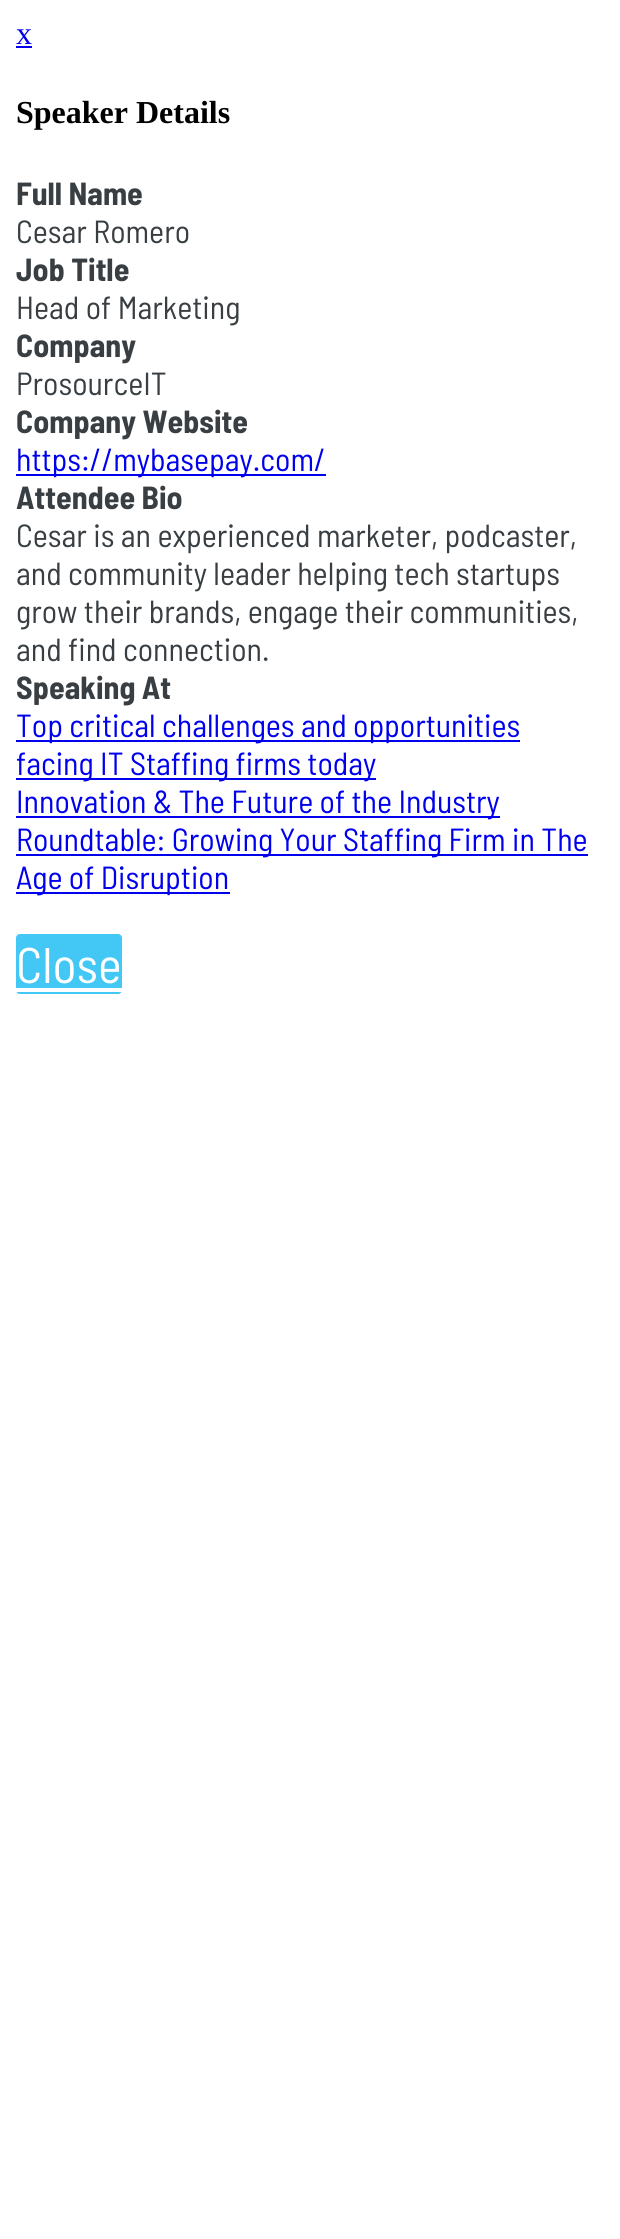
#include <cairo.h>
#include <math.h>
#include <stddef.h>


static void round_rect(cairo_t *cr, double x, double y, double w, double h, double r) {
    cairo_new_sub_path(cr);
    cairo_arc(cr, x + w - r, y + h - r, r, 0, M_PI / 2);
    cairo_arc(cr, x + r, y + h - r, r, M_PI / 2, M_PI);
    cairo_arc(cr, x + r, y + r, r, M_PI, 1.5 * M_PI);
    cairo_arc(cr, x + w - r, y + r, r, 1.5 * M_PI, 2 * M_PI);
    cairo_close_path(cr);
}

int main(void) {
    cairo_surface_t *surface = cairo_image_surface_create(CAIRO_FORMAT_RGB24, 620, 2239);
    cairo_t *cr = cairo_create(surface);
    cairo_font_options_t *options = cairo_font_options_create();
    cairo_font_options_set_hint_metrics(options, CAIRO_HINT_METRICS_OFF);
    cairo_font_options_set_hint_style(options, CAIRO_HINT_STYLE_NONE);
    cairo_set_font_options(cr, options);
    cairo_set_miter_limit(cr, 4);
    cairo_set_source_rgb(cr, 1, 1, 1);
    cairo_paint(cr);
    cairo_select_font_face(cr, "Liberation Serif", CAIRO_FONT_SLANT_NORMAL, CAIRO_FONT_WEIGHT_NORMAL);
    cairo_set_font_size(cr, 32);
    cairo_set_source_rgb(cr, 0, 0, 0.933);
    cairo_move_to(cr, 16, 44);
    cairo_show_text(cr, "x");
    cairo_rectangle(cr, 16, 46, 16, 2);
    cairo_fill(cr);
    cairo_select_font_face(cr, "Liberation Serif", CAIRO_FONT_SLANT_NORMAL, CAIRO_FONT_WEIGHT_BOLD);
    cairo_set_source_rgb(cr, 0, 0, 0);
    cairo_move_to(cr, 16, 123);
    cairo_show_text(cr, "Speaker Details");
    cairo_select_font_face(cr, "Barlow Semi Condensed", CAIRO_FONT_SLANT_NORMAL, CAIRO_FONT_WEIGHT_BOLD);
    cairo_set_source_rgb(cr, 0.22, 0.243, 0.259);
    cairo_move_to(cr, 16, 205);
    cairo_show_text(cr, "Full Name");
    cairo_select_font_face(cr, "Barlow Semi Condensed", CAIRO_FONT_SLANT_NORMAL, CAIRO_FONT_WEIGHT_NORMAL);
    cairo_move_to(cr, 16, 243);
    cairo_show_text(cr, "Cesar Romero");
    cairo_select_font_face(cr, "Barlow Semi Condensed", CAIRO_FONT_SLANT_NORMAL, CAIRO_FONT_WEIGHT_BOLD);
    cairo_move_to(cr, 16, 281);
    cairo_show_text(cr, "Job Title");
    cairo_select_font_face(cr, "Barlow Semi Condensed", CAIRO_FONT_SLANT_NORMAL, CAIRO_FONT_WEIGHT_NORMAL);
    cairo_move_to(cr, 16, 319);
    cairo_show_text(cr, "Head of Marketing");
    cairo_select_font_face(cr, "Barlow Semi Condensed", CAIRO_FONT_SLANT_NORMAL, CAIRO_FONT_WEIGHT_BOLD);
    cairo_move_to(cr, 16, 357);
    cairo_show_text(cr, "Company");
    cairo_select_font_face(cr, "Barlow Semi Condensed", CAIRO_FONT_SLANT_NORMAL, CAIRO_FONT_WEIGHT_NORMAL);
    cairo_move_to(cr, 16, 395);
    cairo_show_text(cr, "ProsourceIT");
    cairo_select_font_face(cr, "Barlow Semi Condensed", CAIRO_FONT_SLANT_NORMAL, CAIRO_FONT_WEIGHT_BOLD);
    cairo_move_to(cr, 16, 433);
    cairo_show_text(cr, "Company Website");
    cairo_set_source_rgb(cr, 0, 0, 0.933);
    cairo_rectangle(cr, 16, 474, 310, 2);
    cairo_fill(cr);
    cairo_select_font_face(cr, "Barlow Semi Condensed", CAIRO_FONT_SLANT_NORMAL, CAIRO_FONT_WEIGHT_NORMAL);
    cairo_move_to(cr, 16, 471);
    cairo_show_text(cr, "https://mybasepay.com/");
    cairo_select_font_face(cr, "Barlow Semi Condensed", CAIRO_FONT_SLANT_NORMAL, CAIRO_FONT_WEIGHT_BOLD);
    cairo_set_source_rgb(cr, 0.22, 0.243, 0.259);
    cairo_move_to(cr, 16, 509);
    cairo_show_text(cr, "Attendee Bio");
    cairo_select_font_face(cr, "Barlow Semi Condensed", CAIRO_FONT_SLANT_NORMAL, CAIRO_FONT_WEIGHT_NORMAL);
    cairo_move_to(cr, 16, 547);
    cairo_show_text(cr, "Cesar is an experienced marketer, podcaster,");
    cairo_move_to(cr, 16, 585);
    cairo_show_text(cr, "and community leader helping tech startups");
    cairo_move_to(cr, 16, 623);
    cairo_show_text(cr, "grow their brands, engage their communities,");
    cairo_move_to(cr, 16, 661);
    cairo_show_text(cr, "and find connection.");
    cairo_select_font_face(cr, "Barlow Semi Condensed", CAIRO_FONT_SLANT_NORMAL, CAIRO_FONT_WEIGHT_BOLD);
    cairo_move_to(cr, 16, 699);
    cairo_show_text(cr, "Speaking At");
    cairo_set_source_rgb(cr, 0, 0, 0.933);
    cairo_rectangle(cr, 16, 740, 504, 2);
    cairo_fill(cr);
    cairo_select_font_face(cr, "Barlow Semi Condensed", CAIRO_FONT_SLANT_NORMAL, CAIRO_FONT_WEIGHT_NORMAL);
    cairo_move_to(cr, 16, 737);
    cairo_show_text(cr, "Top critical challenges and opportunities");
    cairo_rectangle(cr, 16, 778, 360, 2);
    cairo_fill(cr);
    cairo_move_to(cr, 16, 775);
    cairo_show_text(cr, "facing IT Staffing firms today");
    cairo_rectangle(cr, 16, 816, 484, 2);
    cairo_fill(cr);
    cairo_move_to(cr, 16, 813);
    cairo_show_text(cr, "Innovation & The Future of the Industry");
    cairo_rectangle(cr, 16, 854, 572, 2);
    cairo_fill(cr);
    cairo_move_to(cr, 16, 851);
    cairo_show_text(cr, "Roundtable: Growing Your Staffing Firm in The");
    cairo_rectangle(cr, 16, 892, 214, 2);
    cairo_fill(cr);
    cairo_move_to(cr, 16, 889);
    cairo_show_text(cr, "Age of Disruption");
    cairo_set_source_rgb(cr, 0.263, 0.78, 0.957);
    round_rect(cr, 16, 934, 106, 60, 4);
    cairo_fill(cr);
    cairo_set_font_size(cr, 50);
    cairo_set_source_rgb(cr, 1, 1, 1);
    cairo_move_to(cr, 16, 983);
    cairo_show_text(cr, "Close");
    cairo_rectangle(cr, 16, 988, 106, 4);
    cairo_fill(cr);
    cairo_surface_write_to_png(surface, "page.png");
    cairo_font_options_destroy(options);
    cairo_destroy(cr);
    cairo_surface_destroy(surface);
    return 0;
}
